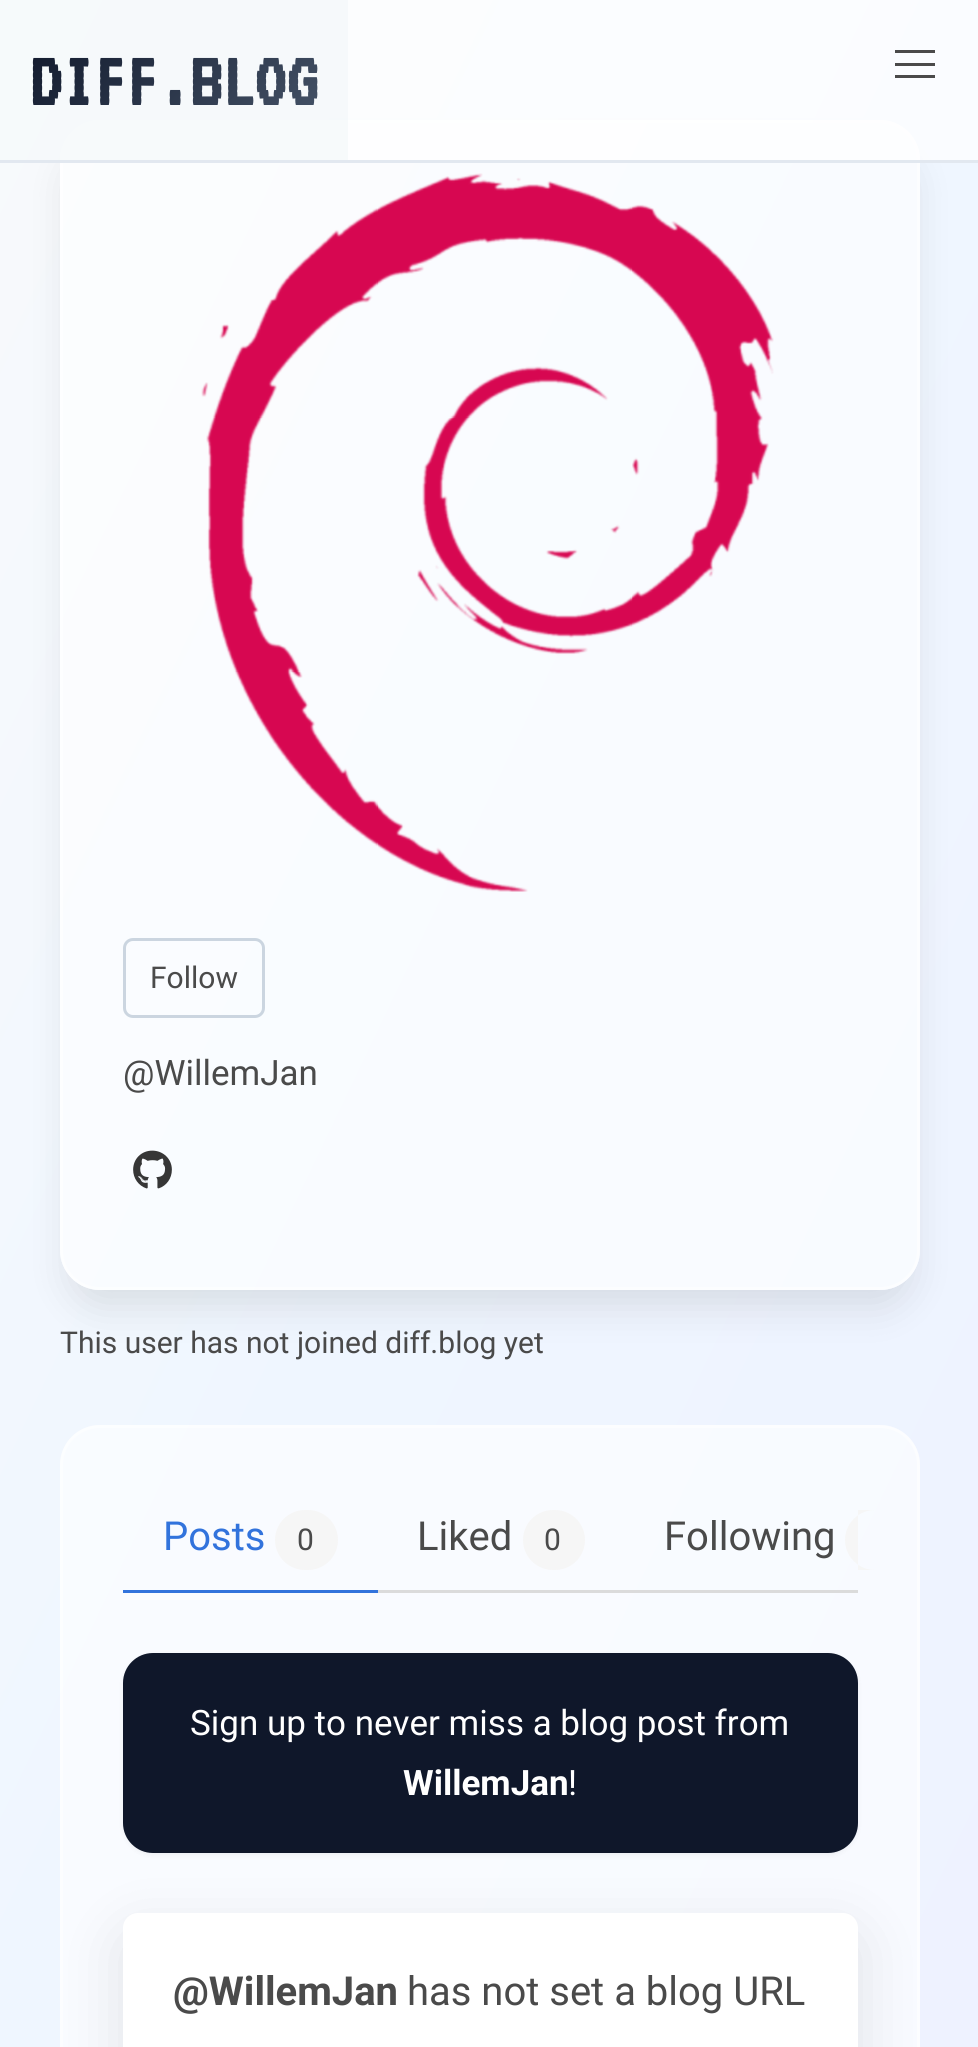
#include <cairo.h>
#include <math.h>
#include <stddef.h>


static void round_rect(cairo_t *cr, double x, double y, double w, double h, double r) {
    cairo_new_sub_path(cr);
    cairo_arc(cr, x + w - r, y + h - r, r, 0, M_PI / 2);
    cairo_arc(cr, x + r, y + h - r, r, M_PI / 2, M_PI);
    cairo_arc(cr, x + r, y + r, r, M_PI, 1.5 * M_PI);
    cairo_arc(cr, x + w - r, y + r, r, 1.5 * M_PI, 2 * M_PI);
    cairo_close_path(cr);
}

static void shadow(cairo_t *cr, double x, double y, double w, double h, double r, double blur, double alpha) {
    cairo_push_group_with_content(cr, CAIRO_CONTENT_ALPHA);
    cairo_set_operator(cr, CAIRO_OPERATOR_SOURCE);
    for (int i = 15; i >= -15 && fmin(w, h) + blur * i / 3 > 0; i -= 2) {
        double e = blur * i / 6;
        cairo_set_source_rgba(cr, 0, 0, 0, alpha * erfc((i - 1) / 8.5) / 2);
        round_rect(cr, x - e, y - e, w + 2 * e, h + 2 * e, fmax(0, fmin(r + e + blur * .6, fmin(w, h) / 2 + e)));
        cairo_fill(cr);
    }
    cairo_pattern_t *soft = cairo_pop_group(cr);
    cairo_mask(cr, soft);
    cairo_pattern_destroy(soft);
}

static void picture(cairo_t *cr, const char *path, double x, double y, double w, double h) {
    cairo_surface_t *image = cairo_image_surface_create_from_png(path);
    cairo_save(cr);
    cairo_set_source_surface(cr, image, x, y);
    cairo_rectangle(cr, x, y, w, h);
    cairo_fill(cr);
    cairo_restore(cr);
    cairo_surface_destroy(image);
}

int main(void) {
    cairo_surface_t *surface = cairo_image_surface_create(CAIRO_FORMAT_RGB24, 978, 2047);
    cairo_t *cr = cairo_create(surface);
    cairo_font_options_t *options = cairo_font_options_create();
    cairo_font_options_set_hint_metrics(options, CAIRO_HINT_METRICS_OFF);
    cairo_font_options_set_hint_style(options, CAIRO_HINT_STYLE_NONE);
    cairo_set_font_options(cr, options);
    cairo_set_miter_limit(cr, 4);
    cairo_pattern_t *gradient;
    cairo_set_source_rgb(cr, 1, 1, 1);
    cairo_paint(cr);
    gradient = cairo_pattern_create_linear(-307, 642, 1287, 1405);
    cairo_pattern_add_color_stop_rgba(gradient, 0, 0.973, 0.98, 0.988, 1);
    cairo_pattern_add_color_stop_rgba(gradient, 0.5, 0.937, 0.965, 1, 1);
    cairo_pattern_add_color_stop_rgba(gradient, 1, 0.933, 0.949, 1, 1);
    cairo_set_source(cr, gradient);
    cairo_pattern_destroy(gradient);
    cairo_rectangle(cr, 0, 0, 978, 2047);
    cairo_fill(cr);
    cairo_save(cr);
    cairo_set_fill_rule(cr, CAIRO_FILL_RULE_EVEN_ODD);
    cairo_new_path(cr);
    cairo_move_to(cr, 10, 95);
    cairo_line_to(cr, 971, 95);
    cairo_line_to(cr, 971, 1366);
    cairo_line_to(cr, 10, 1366);
    cairo_close_path(cr);
    cairo_move_to(cr, 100, 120);
    cairo_line_to(cr, 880, 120);
    cairo_curve_to(cr, 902, 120, 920, 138, 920, 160);
    cairo_line_to(cr, 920, 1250);
    cairo_curve_to(cr, 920, 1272, 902, 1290, 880, 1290);
    cairo_line_to(cr, 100, 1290);
    cairo_curve_to(cr, 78, 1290, 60, 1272, 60, 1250);
    cairo_line_to(cr, 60, 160);
    cairo_curve_to(cr, 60, 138, 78, 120, 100, 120);
    cairo_close_path(cr);
    cairo_clip(cr);
    cairo_set_source_rgb(cr, 0, 0, 0);
    shadow(cr, 68, 153, 845, 1155, 33, 19, 0.1);
    cairo_restore(cr);
    cairo_set_source_rgba(cr, 1, 1, 1, 0.6);
    round_rect(cr, 60, 120, 860, 1170, 40);
    cairo_fill(cr);
    round_rect(cr, 61.5, 121.5, 857, 1167, 38.5);
    cairo_set_source_rgba(cr, 1, 1, 1, 0.5);
    cairo_set_line_width(cr, 3);
    cairo_stroke(cr);
    cairo_set_source_rgba(cr, 1, 1, 1, 0.7);
    cairo_rectangle(cr, 0, 0, 978, 160);
    cairo_fill(cr);
    cairo_set_source_rgb(cr, 0.886, 0.91, 0.941);
    cairo_rectangle(cr, 0, 160, 978, 3);
    cairo_fill(cr);
    cairo_set_source_rgba(cr, 0.945, 0.961, 0.976, 0.5);
    cairo_rectangle(cr, 0, 0, 348, 160);
    cairo_fill(cr);
    cairo_select_font_face(cr, "VT323", CAIRO_FONT_SLANT_NORMAL, CAIRO_FONT_WEIGHT_BOLD);
    cairo_set_font_size(cr, 80);
    gradient = cairo_pattern_create_linear(72, -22, 276, 182);
    cairo_pattern_add_color_stop_rgba(gradient, 0, 0.059, 0.09, 0.165, 1);
    cairo_pattern_add_color_stop_rgba(gradient, 1, 0.278, 0.333, 0.412, 1);
    cairo_set_source(cr, gradient);
    cairo_pattern_destroy(gradient);
    cairo_move_to(cr, 30, 105);
    cairo_show_text(cr, "DIFF.BLOG");
    cairo_set_source_rgb(cr, 0.29, 0.29, 0.29);
    cairo_rectangle(cr, 895, 50, 40, 3);
    cairo_fill(cr);
    cairo_rectangle(cr, 895, 63, 40, 3);
    cairo_fill(cr);
    cairo_rectangle(cr, 895, 75, 40, 3);
    cairo_fill(cr);
    picture(cr, "img1.png", 201, 173, 573, 719);
    round_rect(cr, 124.5, 939.5, 139, 77, 8.5);
    cairo_set_source_rgb(cr, 0.796, 0.835, 0.878);
    cairo_stroke(cr);
    cairo_select_font_face(cr, "Roboto", CAIRO_FONT_SLANT_NORMAL, CAIRO_FONT_WEIGHT_NORMAL);
    cairo_set_font_size(cr, 30);
    cairo_set_source_rgb(cr, 0.29, 0.29, 0.29);
    cairo_move_to(cr, 150, 988);
    cairo_show_text(cr, "Follow");
    cairo_set_font_size(cr, 35);
    cairo_move_to(cr, 123, 1085);
    cairo_show_text(cr, "@WillemJan");
    picture(cr, "img2.png", 133, 1150, 39, 39);
    cairo_set_font_size(cr, 30);
    cairo_move_to(cr, 60, 1353);
    cairo_show_text(cr, "This user has not joined diff.blog yet");
    cairo_set_source_rgba(cr, 1, 1, 1, 0.6);
    round_rect(cr, 60, 1425, 860, 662, 40);
    cairo_fill(cr);
    round_rect(cr, 61.5, 1426.5, 857, 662, 38.5);
    cairo_set_source_rgba(cr, 1, 1, 1, 0.5);
    cairo_stroke(cr);
    cairo_set_source_rgb(cr, 0.859, 0.859, 0.859);
    cairo_rectangle(cr, 378, 1590, 480, 3);
    cairo_fill(cr);
    cairo_set_source_rgb(cr, 0.196, 0.451, 0.863);
    cairo_rectangle(cr, 123, 1590, 255, 3);
    cairo_fill(cr);
    cairo_set_font_size(cr, 40);
    cairo_move_to(cr, 163, 1550);
    cairo_show_text(cr, "Posts");
    cairo_set_source_rgb(cr, 0.961, 0.961, 0.961);
    round_rect(cr, 275, 1510, 63, 60, 30);
    cairo_fill(cr);
    cairo_set_font_size(cr, 30);
    cairo_set_source_rgb(cr, 0.29, 0.29, 0.29);
    cairo_move_to(cr, 297, 1550);
    cairo_show_text(cr, "0");
    cairo_set_font_size(cr, 40);
    cairo_move_to(cr, 417, 1550);
    cairo_show_text(cr, "Liked");
    cairo_set_source_rgb(cr, 0.961, 0.961, 0.961);
    round_rect(cr, 523, 1510, 62, 60, 30);
    cairo_fill(cr);
    cairo_set_font_size(cr, 30);
    cairo_set_source_rgb(cr, 0.29, 0.29, 0.29);
    cairo_move_to(cr, 544, 1550);
    cairo_show_text(cr, "0");
    cairo_set_font_size(cr, 40);
    cairo_move_to(cr, 664, 1550);
    cairo_show_text(cr, "Following");
    cairo_set_source_rgb(cr, 0.961, 0.961, 0.961);
    cairo_new_path(cr);
    cairo_move_to(cr, 875, 1510);
    cairo_line_to(cr, 858, 1510);
    cairo_line_to(cr, 858, 1570);
    cairo_line_to(cr, 875, 1570);
    cairo_curve_to(cr, 858.5, 1570, 845, 1556.5, 845, 1540);
    cairo_curve_to(cr, 845, 1523.5, 858.5, 1510, 875, 1510);
    cairo_close_path(cr);
    cairo_fill(cr);
    cairo_set_source_rgb(cr, 0, 0, 0);
    shadow(cr, 123, 1655, 735, 200, 30, 2.5, 0.05);
    shadow(cr, 123, 1933, 735, 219, 15, 30, 0.1);
    cairo_set_source_rgb(cr, 0.059, 0.09, 0.165);
    round_rect(cr, 123, 1653, 735, 200, 30);
    cairo_fill(cr);
    cairo_set_font_size(cr, 35);
    cairo_set_source_rgb(cr, 1, 1, 1);
    cairo_move_to(cr, 190, 1735);
    cairo_show_text(cr, "Sign up to never miss a blog post from");
    cairo_select_font_face(cr, "Roboto", CAIRO_FONT_SLANT_NORMAL, CAIRO_FONT_WEIGHT_BOLD);
    cairo_move_to(cr, 403, 1795);
    cairo_show_text(cr, "WillemJan");
    cairo_select_font_face(cr, "Roboto", CAIRO_FONT_SLANT_NORMAL, CAIRO_FONT_WEIGHT_NORMAL);
    cairo_move_to(cr, 568, 1795);
    cairo_show_text(cr, "!");
    round_rect(cr, 123, 1913, 735, 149, 15);
    cairo_fill(cr);
    cairo_select_font_face(cr, "Roboto", CAIRO_FONT_SLANT_NORMAL, CAIRO_FONT_WEIGHT_BOLD);
    cairo_set_font_size(cr, 40);
    cairo_set_source_rgb(cr, 0.29, 0.29, 0.29);
    cairo_move_to(cr, 173, 2005);
    cairo_show_text(cr, "@WillemJan");
    cairo_select_font_face(cr, "Roboto", CAIRO_FONT_SLANT_NORMAL, CAIRO_FONT_WEIGHT_NORMAL);
    cairo_move_to(cr, 407, 2005);
    cairo_show_text(cr, "has not set a blog URL");
    cairo_surface_write_to_png(surface, "page.png");
    cairo_font_options_destroy(options);
    cairo_destroy(cr);
    cairo_surface_destroy(surface);
    return 0;
}
